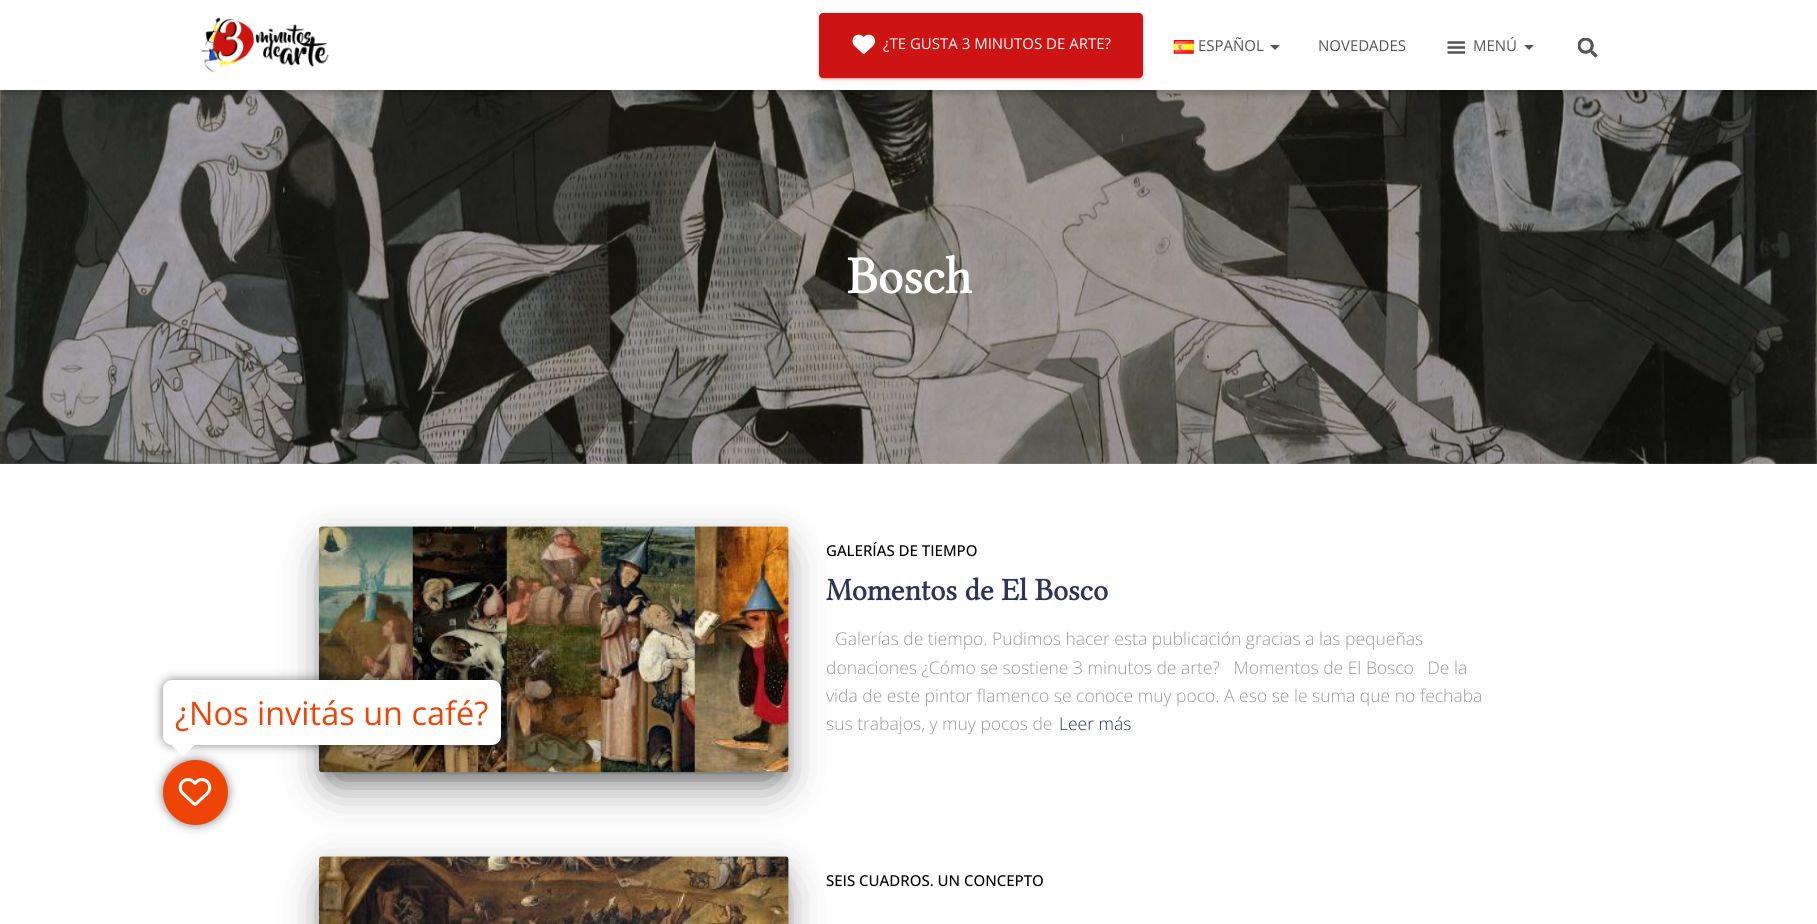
#include <cairo.h>
#include <math.h>
#include <stddef.h>


static void round_rect(cairo_t *cr, double x, double y, double w, double h, double r) {
    cairo_new_sub_path(cr);
    cairo_arc(cr, x + w - r, y + h - r, r, 0, M_PI / 2);
    cairo_arc(cr, x + r, y + h - r, r, M_PI / 2, M_PI);
    cairo_arc(cr, x + r, y + r, r, M_PI, 1.5 * M_PI);
    cairo_arc(cr, x + w - r, y + r, r, 1.5 * M_PI, 2 * M_PI);
    cairo_close_path(cr);
}

static void shadow(cairo_t *cr, double x, double y, double w, double h, double r, double blur, double alpha) {
    cairo_push_group_with_content(cr, CAIRO_CONTENT_ALPHA);
    cairo_set_operator(cr, CAIRO_OPERATOR_SOURCE);
    for (int i = 15; i >= -15 && fmin(w, h) + blur * i / 3 > 0; i -= 2) {
        double e = blur * i / 6;
        cairo_set_source_rgba(cr, 0, 0, 0, alpha * erfc((i - 1) / 8.5) / 2);
        round_rect(cr, x - e, y - e, w + 2 * e, h + 2 * e, fmax(0, fmin(r + e + blur * .6, fmin(w, h) / 2 + e)));
        cairo_fill(cr);
    }
    cairo_pattern_t *soft = cairo_pop_group(cr);
    cairo_mask(cr, soft);
    cairo_pattern_destroy(soft);
}

static void picture(cairo_t *cr, const char *path, double x, double y, double w, double h) {
    cairo_surface_t *image = cairo_image_surface_create_from_png(path);
    cairo_save(cr);
    cairo_set_source_surface(cr, image, x, y);
    cairo_rectangle(cr, x, y, w, h);
    cairo_fill(cr);
    cairo_restore(cr);
    cairo_surface_destroy(image);
}

int main(void) {
    cairo_surface_t *surface = cairo_image_surface_create(CAIRO_FORMAT_RGB24, 1817, 924);
    cairo_t *cr = cairo_create(surface);
    cairo_font_options_t *options = cairo_font_options_create();
    cairo_font_options_set_hint_metrics(options, CAIRO_HINT_METRICS_OFF);
    cairo_font_options_set_hint_style(options, CAIRO_HINT_STYLE_NONE);
    cairo_set_font_options(cr, options);
    cairo_set_miter_limit(cr, 4);
    cairo_set_source_rgb(cr, 1, 1, 1);
    cairo_paint(cr);
    cairo_set_source_rgb(cr, 0, 0, 0);
    shadow(cr, 163, 760, 65, 65, 32.5, 5, 0.5);
    cairo_set_source_rgb(cr, 0.933, 0.271, 0.027);
    cairo_arc(cr, 195.5, 792.5, 32.5, 0, 2 * M_PI);
    cairo_fill(cr);
    cairo_set_source_rgb(cr, 0, 0, 0);
    shadow(cr, 325, 543, 458, 233, 0, 6, 0.2);
    shadow(cr, 319, 531, 470, 247, 4, 15.5, 0.12);
    shadow(cr, 334, 561, 440, 217, 0, 24, 0.56);
    picture(cr, "img8.png", 319, 526, 470, 247);
    shadow(cr, 163, 680, 338, 65, 9, 5, 0.5);
    cairo_set_source_rgb(cr, 1, 1, 1);
    round_rect(cr, 163, 680, 338, 65, 9);
    cairo_fill(cr);
    cairo_select_font_face(cr, "Open Sans", CAIRO_FONT_SLANT_NORMAL, CAIRO_FONT_WEIGHT_NORMAL);
    cairo_set_font_size(cr, 32.5);
    cairo_set_source_rgb(cr, 0.933, 0.271, 0.027);
    cairo_move_to(cr, 175, 725);
    cairo_show_text(cr, "¿Nos invitás un café?");
    cairo_set_source_rgb(cr, 1, 1, 1);
    cairo_new_path(cr);
    cairo_move_to(cr, 183, 733.5);
    cairo_line_to(cr, 194.5, 745);
    cairo_line_to(cr, 183, 756.5);
    cairo_line_to(cr, 171.5, 745);
    cairo_close_path(cr);
    cairo_fill(cr);
    picture(cr, "img1.png", 178, 778, 34, 28);
    picture(cr, "img7.png", 0, 90, 1817, 374);
    cairo_set_source_rgb(cr, 0, 0, 0);
    shadow(cr, 3, 8, 1812, 85, 0, 3, 0.1);
    shadow(cr, 0, 1, 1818, 90, 0, 6, 0.12);
    shadow(cr, 8, 9, 1802, 75, 0, 6, 0.42);
    cairo_set_source_rgb(cr, 1, 1, 1);
    cairo_rectangle(cr, 0, 0, 1817, 90);
    cairo_fill(cr);
    picture(cr, "img2.png", 201, 17, 128, 56);
    cairo_set_source_rgb(cr, 0.804, 0.082, 0.071);
    shadow(cr, 819, 14, 324, 65, 4, 3, 0.12);
    shadow(cr, 821, 19, 319, 60, 1, 0.5, 0.2);
    shadow(cr, 819, 15, 324, 65, 4, 1, 0.14);
    cairo_set_source_rgb(cr, 0.804, 0.082, 0.071);
    round_rect(cr, 819, 13, 324, 65, 4);
    cairo_fill(cr);
    picture(cr, "img3.png", 852, 34, 23, 20);
    cairo_set_font_size(cr, 15);
    cairo_set_source_rgb(cr, 1, 1, 1);
    cairo_move_to(cr, 883, 49);
    cairo_show_text(cr, "¿TE GUSTA 3 MINUTOS DE ARTE?");
    picture(cr, "img4.png", 1173, 40, 21, 14);
    cairo_set_source_rgb(cr, 0.333, 0.333, 0.333);
    cairo_move_to(cr, 1198, 51);
    cairo_show_text(cr, "ESPAÑOL");
    cairo_new_path(cr);
    cairo_move_to(cr, 1270, 45);
    cairo_line_to(cr, 1280, 45);
    cairo_line_to(cr, 1275, 50);
    cairo_close_path(cr);
    cairo_fill(cr);
    cairo_move_to(cr, 1318, 51);
    cairo_show_text(cr, "NOVEDADES");
    picture(cr, "img5.png", 1447, 41, 18, 13);
    cairo_move_to(cr, 1473, 51);
    cairo_show_text(cr, "MENÚ");
    cairo_new_path(cr);
    cairo_move_to(cr, 1524, 45);
    cairo_line_to(cr, 1534, 45);
    cairo_line_to(cr, 1529, 50);
    cairo_close_path(cr);
    cairo_fill(cr);
    picture(cr, "img6.png", 1578, 38, 20, 20);
    cairo_select_font_face(cr, "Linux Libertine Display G", CAIRO_FONT_SLANT_NORMAL, CAIRO_FONT_WEIGHT_BOLD);
    cairo_set_font_size(cr, 52.5);
    cairo_set_source_rgb(cr, 1, 1, 1);
    cairo_move_to(cr, 847, 293);
    cairo_show_text(cr, "Bosch");
    cairo_select_font_face(cr, "Open Sans Medium", CAIRO_FONT_SLANT_NORMAL, CAIRO_FONT_WEIGHT_NORMAL);
    cairo_set_font_size(cr, 15);
    cairo_set_source_rgb(cr, 0, 0, 0);
    cairo_move_to(cr, 826, 556);
    cairo_show_text(cr, "GALERÍAS DE TIEMPO");
    cairo_select_font_face(cr, "Linux Libertine Display G", CAIRO_FONT_SLANT_NORMAL, CAIRO_FONT_WEIGHT_BOLD);
    cairo_set_font_size(cr, 31.25);
    cairo_set_source_rgb(cr, 0.176, 0.2, 0.349);
    cairo_move_to(cr, 826, 600);
    cairo_show_text(cr, "Momentos de El Bosco");
    cairo_select_font_face(cr, "Open Sans Light", CAIRO_FONT_SLANT_NORMAL, CAIRO_FONT_WEIGHT_NORMAL);
    cairo_set_font_size(cr, 17.5);
    cairo_set_source_rgb(cr, 0.6, 0.6, 0.6);
    cairo_move_to(cr, 835, 645);
    cairo_show_text(cr, "Galerías de tiempo. Pudimos hacer esta publicación gracias a las pequeñas");
    cairo_move_to(cr, 826, 674);
    cairo_show_text(cr, "donaciones ¿Cómo se sostiene 3 minutos de arte?   Momentos de El Bosco   De la");
    cairo_move_to(cr, 826, 702);
    cairo_show_text(cr, "vida de este pintor flamenco se conoce muy poco. A eso se le suma que no fechaba");
    cairo_move_to(cr, 826, 730);
    cairo_show_text(cr, "sus trabajos, y muy pocos de");
    cairo_set_source_rgb(cr, 0.176, 0.2, 0.349);
    cairo_move_to(cr, 1059, 730);
    cairo_show_text(cr, "Leer más");
    cairo_set_source_rgb(cr, 0, 0, 0);
    shadow(cr, 325, 873, 458, 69, 0, 6, 0.2);
    shadow(cr, 319, 861, 470, 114, 4, 15.5, 0.12);
    shadow(cr, 334, 891, 440, 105, 0, 24, 0.56);
    picture(cr, "img9.png", 319, 856, 470, 68);
    cairo_select_font_face(cr, "Open Sans Medium", CAIRO_FONT_SLANT_NORMAL, CAIRO_FONT_WEIGHT_NORMAL);
    cairo_set_font_size(cr, 15);
    cairo_set_source_rgb(cr, 0, 0, 0);
    cairo_move_to(cr, 826, 886);
    cairo_show_text(cr, "SEIS CUADROS. UN CONCEPTO");
    cairo_surface_write_to_png(surface, "page.png");
    cairo_font_options_destroy(options);
    cairo_destroy(cr);
    cairo_surface_destroy(surface);
    return 0;
}
